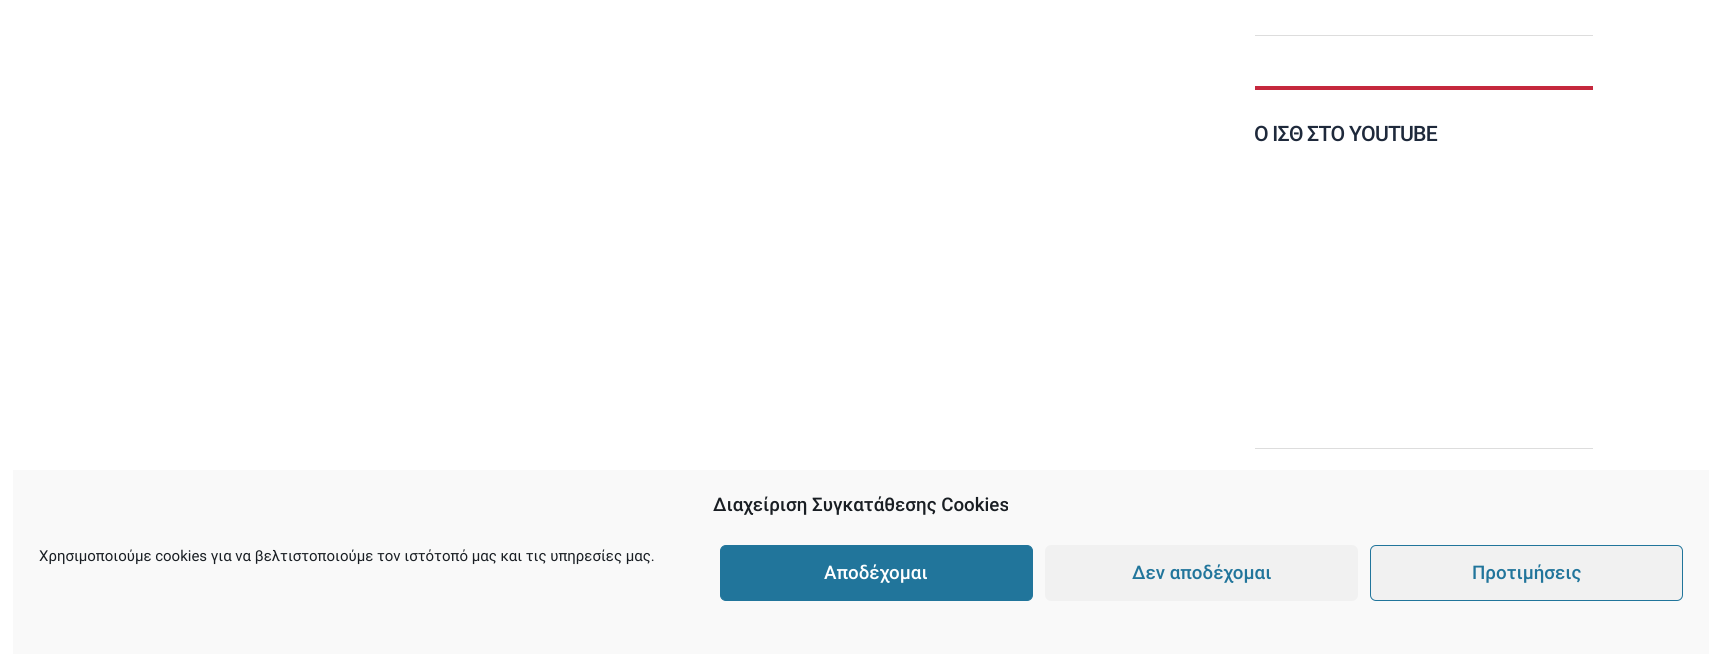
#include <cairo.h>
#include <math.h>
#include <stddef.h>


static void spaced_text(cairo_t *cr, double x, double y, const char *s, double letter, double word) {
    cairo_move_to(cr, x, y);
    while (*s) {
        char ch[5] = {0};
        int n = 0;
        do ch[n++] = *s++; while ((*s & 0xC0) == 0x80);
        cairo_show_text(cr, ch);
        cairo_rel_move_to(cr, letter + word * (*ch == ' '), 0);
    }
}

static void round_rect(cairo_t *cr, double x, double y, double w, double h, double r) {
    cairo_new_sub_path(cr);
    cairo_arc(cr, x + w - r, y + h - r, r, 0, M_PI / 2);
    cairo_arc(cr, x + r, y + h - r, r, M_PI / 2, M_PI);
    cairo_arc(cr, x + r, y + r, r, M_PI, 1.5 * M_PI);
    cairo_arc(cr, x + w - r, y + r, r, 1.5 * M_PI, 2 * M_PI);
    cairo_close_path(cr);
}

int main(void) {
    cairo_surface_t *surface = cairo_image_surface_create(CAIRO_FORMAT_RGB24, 1721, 666);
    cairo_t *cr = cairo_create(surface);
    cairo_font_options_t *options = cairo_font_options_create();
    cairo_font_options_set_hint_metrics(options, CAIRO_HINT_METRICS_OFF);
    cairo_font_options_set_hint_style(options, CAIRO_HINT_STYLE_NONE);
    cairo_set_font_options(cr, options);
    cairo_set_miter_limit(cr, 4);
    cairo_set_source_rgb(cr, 1, 1, 1);
    cairo_paint(cr);
    cairo_set_source_rgb(cr, 0.867, 0.867, 0.867);
    cairo_rectangle(cr, 1255, 35, 338, 1);
    cairo_fill(cr);
    cairo_rectangle(cr, 1255, 448, 338, 1);
    cairo_fill(cr);
    cairo_set_source_rgb(cr, 0.773, 0.157, 0.239);
    cairo_rectangle(cr, 1255, 86, 338, 4);
    cairo_fill(cr);
    cairo_select_font_face(cr, "Roboto Medium", CAIRO_FONT_SLANT_NORMAL, CAIRO_FONT_WEIGHT_NORMAL);
    cairo_set_font_size(cr, 21.25);
    cairo_set_source_rgb(cr, 0.118, 0.161, 0.231);
    spaced_text(cr, 1254, 141, "Ο ΙΣΘ ΣΤΟ YOUTUBE", -0.8, 0);
    cairo_set_source_rgb(cr, 0.976, 0.976, 0.976);
    cairo_rectangle(cr, 13, 470, 1696, 184);
    cairo_fill(cr);
    cairo_set_font_size(cr, 18.75);
    cairo_set_source_rgb(cr, 0.098, 0.118, 0.137);
    cairo_move_to(cr, 713, 511);
    cairo_show_text(cr, "Διαχείριση Συγκατάθεσης Cookies");
    cairo_select_font_face(cr, "Roboto", CAIRO_FONT_SLANT_NORMAL, CAIRO_FONT_WEIGHT_NORMAL);
    cairo_set_font_size(cr, 15);
    cairo_move_to(cr, 39, 561);
    cairo_show_text(cr, "Χρησιμοποιούμε cookies για να βελτιστοποιούμε τον ιστότοπό μας και τις υπηρεσίες μας.");
    cairo_set_source_rgb(cr, 0.129, 0.459, 0.608);
    round_rect(cr, 720.5, 545.5, 312, 55, 5.5);
    cairo_fill_preserve(cr);
    cairo_set_line_width(cr, 1);
    cairo_stroke(cr);
    cairo_select_font_face(cr, "Roboto Medium", CAIRO_FONT_SLANT_NORMAL, CAIRO_FONT_WEIGHT_NORMAL);
    cairo_set_font_size(cr, 18.75);
    cairo_set_source_rgb(cr, 1, 1, 1);
    cairo_move_to(cr, 824, 579);
    cairo_show_text(cr, "Αποδέχομαι");
    cairo_set_source_rgb(cr, 0.945, 0.945, 0.945);
    round_rect(cr, 1045, 545, 313, 56, 6);
    cairo_fill(cr);
    cairo_set_source_rgb(cr, 0.129, 0.459, 0.608);
    cairo_move_to(cr, 1132, 579);
    cairo_show_text(cr, "Δεν αποδέχομαι");
    cairo_set_source_rgb(cr, 0.945, 0.945, 0.945);
    round_rect(cr, 1370.5, 545.5, 312, 55, 5.5);
    cairo_fill_preserve(cr);
    cairo_set_source_rgb(cr, 0.129, 0.459, 0.608);
    cairo_stroke(cr);
    cairo_move_to(cr, 1472, 579);
    cairo_show_text(cr, "Προτιμήσεις");
    cairo_surface_write_to_png(surface, "page.png");
    cairo_font_options_destroy(options);
    cairo_destroy(cr);
    cairo_surface_destroy(surface);
    return 0;
}
